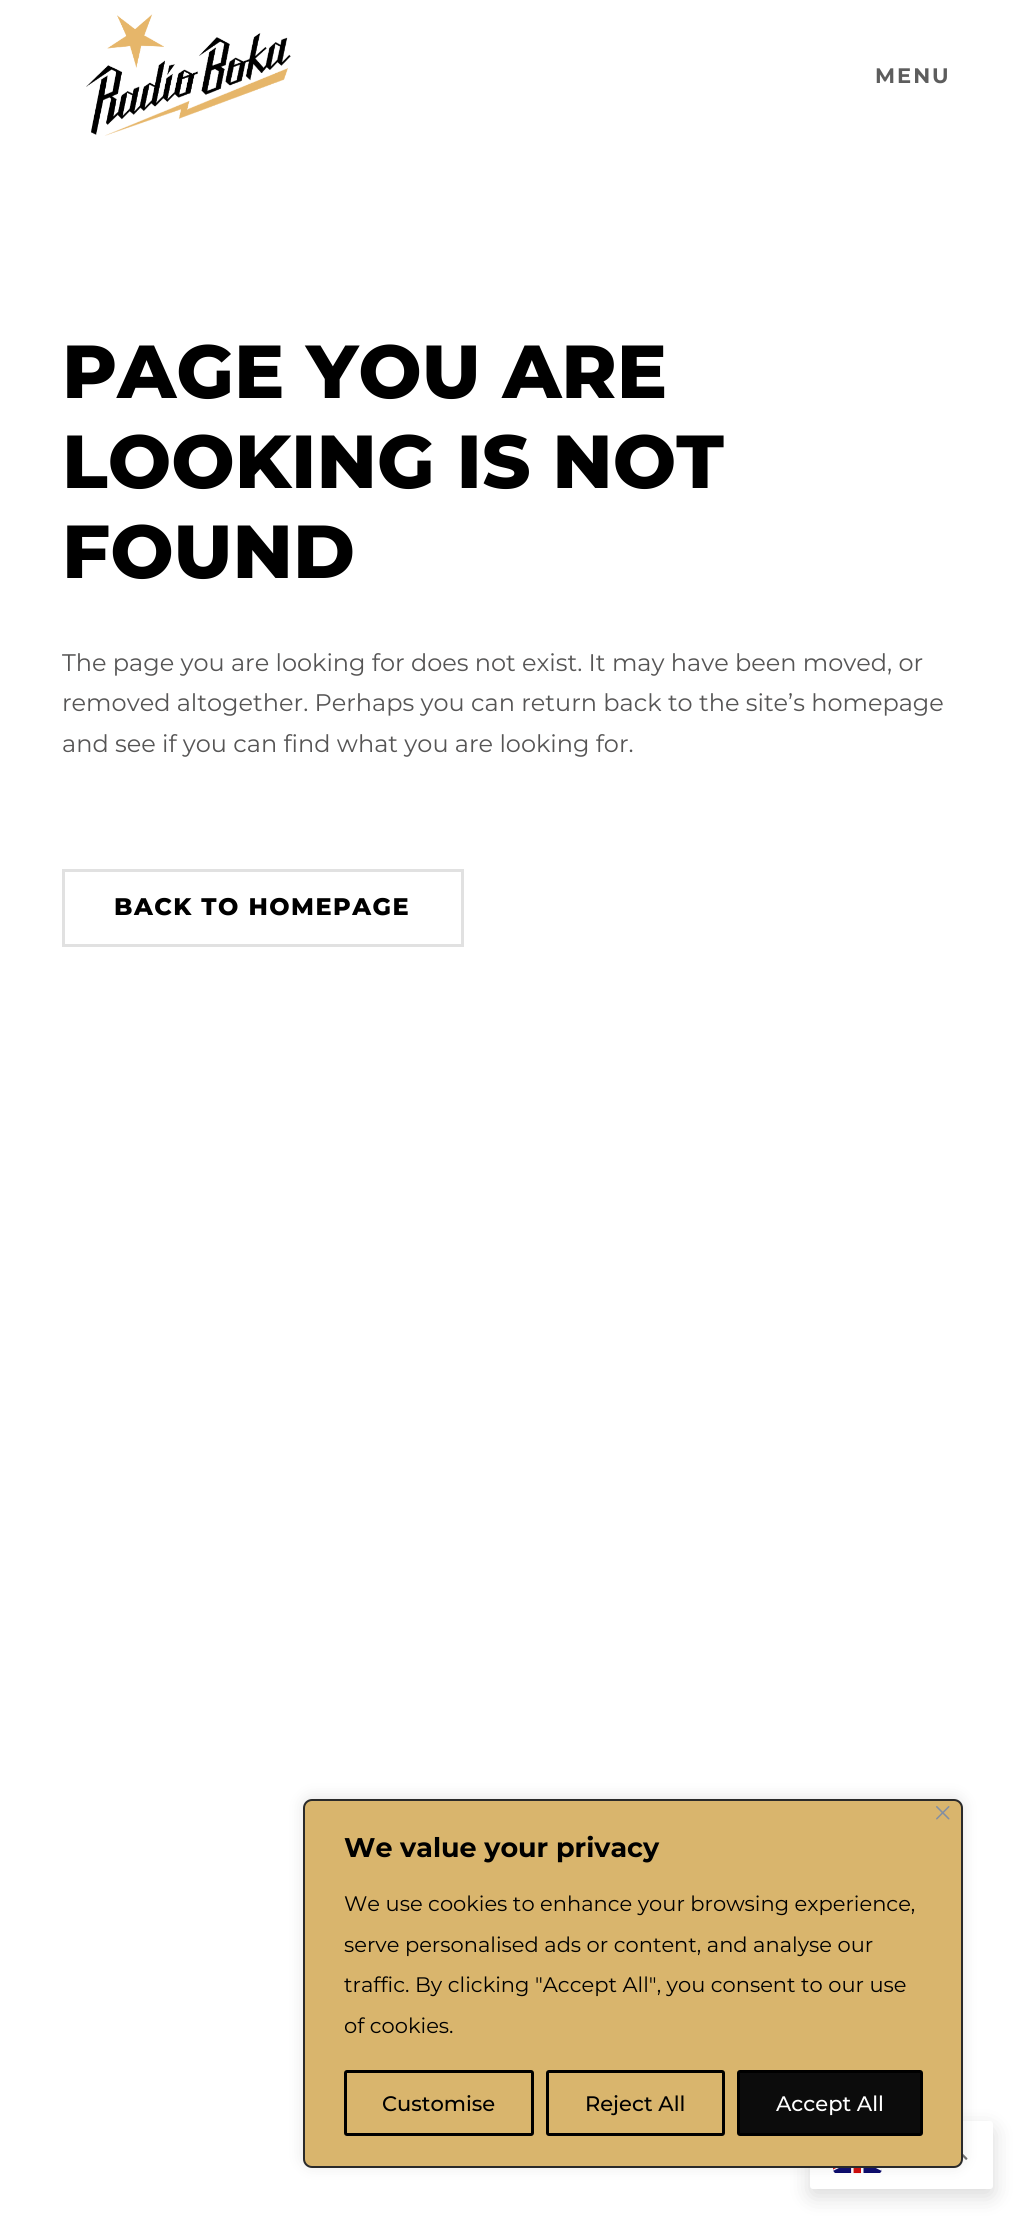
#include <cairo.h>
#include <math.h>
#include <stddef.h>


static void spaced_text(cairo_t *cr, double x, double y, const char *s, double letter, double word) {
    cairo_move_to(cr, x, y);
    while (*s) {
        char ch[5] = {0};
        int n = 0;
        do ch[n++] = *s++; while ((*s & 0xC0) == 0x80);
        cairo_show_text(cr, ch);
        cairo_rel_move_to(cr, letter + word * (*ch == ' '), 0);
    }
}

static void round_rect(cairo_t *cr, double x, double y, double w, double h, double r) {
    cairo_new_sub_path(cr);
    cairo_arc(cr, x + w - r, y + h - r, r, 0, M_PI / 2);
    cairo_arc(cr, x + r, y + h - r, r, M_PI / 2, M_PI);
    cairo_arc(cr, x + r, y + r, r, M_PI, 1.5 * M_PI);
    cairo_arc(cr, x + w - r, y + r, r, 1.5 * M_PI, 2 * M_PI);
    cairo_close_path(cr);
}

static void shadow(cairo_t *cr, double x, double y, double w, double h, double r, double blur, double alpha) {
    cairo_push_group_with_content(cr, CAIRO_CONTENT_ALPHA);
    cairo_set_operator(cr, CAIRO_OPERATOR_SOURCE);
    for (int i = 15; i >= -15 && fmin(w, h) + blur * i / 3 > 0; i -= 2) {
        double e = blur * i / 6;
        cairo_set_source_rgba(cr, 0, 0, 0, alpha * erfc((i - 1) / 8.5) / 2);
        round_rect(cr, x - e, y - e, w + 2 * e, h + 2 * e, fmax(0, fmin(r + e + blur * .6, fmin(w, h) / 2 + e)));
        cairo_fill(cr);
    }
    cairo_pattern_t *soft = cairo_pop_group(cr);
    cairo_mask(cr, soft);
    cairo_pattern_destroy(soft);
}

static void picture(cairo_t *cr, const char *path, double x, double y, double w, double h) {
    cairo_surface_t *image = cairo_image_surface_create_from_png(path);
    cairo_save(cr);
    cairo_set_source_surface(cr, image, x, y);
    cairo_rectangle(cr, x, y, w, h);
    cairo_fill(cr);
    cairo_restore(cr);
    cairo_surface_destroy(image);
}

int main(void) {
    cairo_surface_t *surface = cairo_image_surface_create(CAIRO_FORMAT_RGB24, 1022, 2227);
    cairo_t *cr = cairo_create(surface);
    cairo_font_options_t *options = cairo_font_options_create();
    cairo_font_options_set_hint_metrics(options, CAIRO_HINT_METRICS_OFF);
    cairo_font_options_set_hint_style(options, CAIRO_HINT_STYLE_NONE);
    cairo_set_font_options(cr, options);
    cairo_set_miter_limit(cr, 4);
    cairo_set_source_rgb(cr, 1, 1, 1);
    cairo_paint(cr);
    picture(cr, "img1.png", 86, 14, 205, 122);
    cairo_select_font_face(cr, "Montserrat", CAIRO_FONT_SLANT_NORMAL, CAIRO_FONT_WEIGHT_BOLD);
    cairo_set_font_size(cr, 21);
    cairo_set_source_rgb(cr, 0.365, 0.365, 0.365);
    spaced_text(cr, 875, 83, "MENU", 2, 0);
    cairo_select_font_face(cr, "Montserrat ExtraBold", CAIRO_FONT_SLANT_NORMAL, CAIRO_FONT_WEIGHT_NORMAL);
    cairo_set_font_size(cr, 75);
    cairo_set_source_rgb(cr, 0, 0, 0);
    cairo_move_to(cr, 62, 398);
    cairo_show_text(cr, "PAGE YOU ARE");
    cairo_move_to(cr, 62, 488);
    cairo_show_text(cr, "LOOKING IS NOT");
    cairo_move_to(cr, 62, 578);
    cairo_show_text(cr, "FOUND");
    cairo_select_font_face(cr, "Montserrat", CAIRO_FONT_SLANT_NORMAL, CAIRO_FONT_WEIGHT_NORMAL);
    cairo_set_font_size(cr, 24);
    cairo_set_source_rgb(cr, 0.337, 0.333, 0.333);
    cairo_move_to(cr, 62, 671);
    cairo_show_text(cr, "The page you are looking for does not exist. It may have been moved, or");
    cairo_move_to(cr, 62, 711);
    cairo_show_text(cr, "removed altogether. Perhaps you can return back to the site’s homepage");
    cairo_move_to(cr, 62, 752);
    cairo_show_text(cr, "and see if you can find what you are looking for.");
    cairo_rectangle(cr, 63.5, 870.5, 399, 75);
    cairo_set_source_rgb(cr, 0.882, 0.882, 0.882);
    cairo_set_line_width(cr, 3);
    cairo_stroke(cr);
    cairo_select_font_face(cr, "Montserrat ExtraBold", CAIRO_FONT_SLANT_NORMAL, CAIRO_FONT_WEIGHT_NORMAL);
    cairo_set_source_rgb(cr, 0, 0, 0);
    spaced_text(cr, 114, 915, "BACK TO HOMEPAGE", 1.5, 0);
    cairo_set_source_rgb(cr, 0, 0, 0);
    shadow(cr, 810, 2129, 183, 67, 3, 11, 0.15);
    cairo_set_source_rgb(cr, 1, 1, 1);
    round_rect(cr, 810, 2121, 183, 68, 3);
    cairo_fill(cr);
    picture(cr, "img3.png", 963, 2154, 5, 6);
    picture(cr, "img4.png", 833, 2168, 49, 6);
    cairo_set_source_rgb(cr, 0.675, 0.671, 0.671);
    shadow(cr, 303, 1797, 660, 369, 9, 7.5, 0.3);
    cairo_set_source_rgb(cr, 0.851, 0.71, 0.427);
    round_rect(cr, 304, 1800, 658, 367, 8);
    cairo_fill_preserve(cr);
    cairo_set_source_rgb(cr, 0.165, 0.165, 0.165);
    cairo_set_line_width(cr, 2);
    cairo_stroke(cr);
    picture(cr, "img2.png", 936, 1806, 14, 14);
    cairo_select_font_face(cr, "Montserrat", CAIRO_FONT_SLANT_NORMAL, CAIRO_FONT_WEIGHT_BOLD);
    cairo_set_font_size(cr, 27);
    cairo_set_source_rgb(cr, 0, 0, 0);
    cairo_move_to(cr, 344, 1857);
    cairo_show_text(cr, "We value your privacy");
    cairo_select_font_face(cr, "Montserrat", CAIRO_FONT_SLANT_NORMAL, CAIRO_FONT_WEIGHT_NORMAL);
    cairo_set_font_size(cr, 21);
    cairo_move_to(cr, 344, 1911);
    cairo_show_text(cr, "We use cookies to enhance your browsing experience,");
    cairo_move_to(cr, 344, 1952);
    cairo_show_text(cr, "serve personalised ads or content, and analyse our");
    cairo_move_to(cr, 344, 1992);
    cairo_show_text(cr, "traffic. By clicking \"Accept All\", you consent to our use");
    cairo_move_to(cr, 344, 2033);
    cairo_show_text(cr, "of cookies.");
    round_rect(cr, 345.5, 2071.5, 187, 63, 1.5);
    cairo_set_line_width(cr, 3);
    cairo_stroke(cr);
    cairo_select_font_face(cr, "Montserrat Medium", CAIRO_FONT_SLANT_NORMAL, CAIRO_FONT_WEIGHT_NORMAL);
    cairo_move_to(cr, 382, 2111);
    cairo_show_text(cr, "Customise");
    round_rect(cr, 547.5, 2071.5, 176, 63, 1.5);
    cairo_stroke(cr);
    cairo_move_to(cr, 585, 2111);
    cairo_show_text(cr, "Reject All");
    cairo_set_source_rgb(cr, 0.047, 0.047, 0.047);
    round_rect(cr, 738.5, 2071.5, 183, 63, 1.5);
    cairo_fill_preserve(cr);
    cairo_set_source_rgb(cr, 0, 0, 0);
    cairo_stroke(cr);
    cairo_set_source_rgb(cr, 1, 1, 1);
    cairo_move_to(cr, 776, 2111);
    cairo_show_text(cr, "Accept All");
    cairo_surface_write_to_png(surface, "page.png");
    cairo_font_options_destroy(options);
    cairo_destroy(cr);
    cairo_surface_destroy(surface);
    return 0;
}
